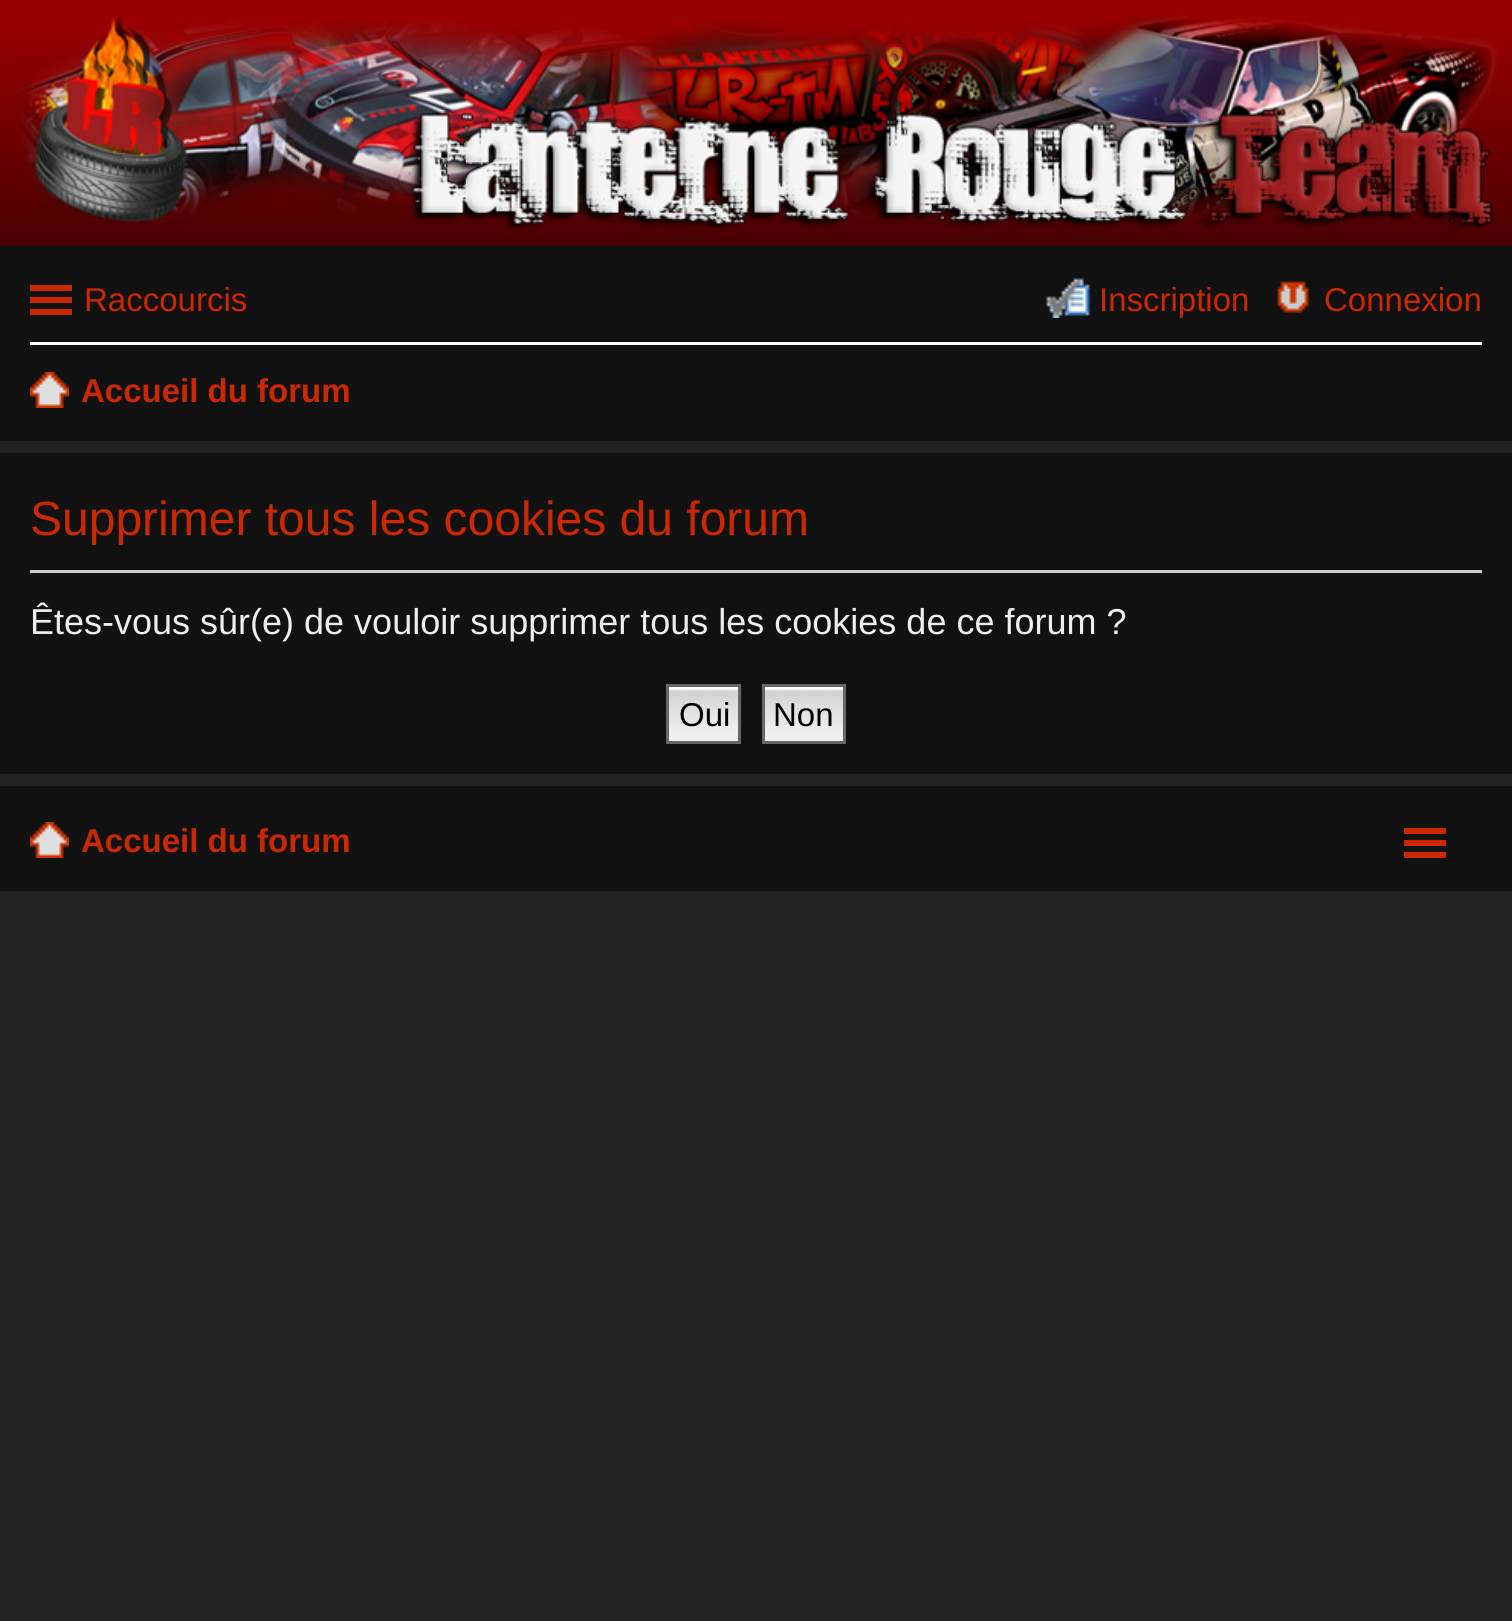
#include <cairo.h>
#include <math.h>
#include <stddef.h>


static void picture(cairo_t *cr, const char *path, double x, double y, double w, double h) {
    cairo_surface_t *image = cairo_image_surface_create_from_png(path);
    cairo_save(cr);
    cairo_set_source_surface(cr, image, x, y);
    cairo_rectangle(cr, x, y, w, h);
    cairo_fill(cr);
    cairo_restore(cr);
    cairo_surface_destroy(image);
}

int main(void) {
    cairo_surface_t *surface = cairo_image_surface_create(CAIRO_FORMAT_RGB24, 1512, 1621);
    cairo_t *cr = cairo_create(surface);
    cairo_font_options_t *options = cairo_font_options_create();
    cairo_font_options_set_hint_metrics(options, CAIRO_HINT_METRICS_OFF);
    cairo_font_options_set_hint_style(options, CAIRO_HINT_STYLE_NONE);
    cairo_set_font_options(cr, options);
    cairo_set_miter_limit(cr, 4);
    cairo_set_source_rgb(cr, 0.133, 0.133, 0.133);
    cairo_paint(cr);
    picture(cr, "img1.png", 0, 0, 1512, 246);
    picture(cr, "img2.png", 18, 15, 1479, 213);
    cairo_set_source_rgb(cr, 0.067, 0.067, 0.067);
    cairo_rectangle(cr, 0, 246, 1512, 195);
    cairo_fill(cr);
    cairo_set_source_rgb(cr, 0.792, 0.157, 0);
    cairo_rectangle(cr, 30, 285, 42, 6);
    cairo_fill(cr);
    cairo_rectangle(cr, 30, 297, 42, 6);
    cairo_fill(cr);
    cairo_rectangle(cr, 30, 309, 42, 6);
    cairo_fill(cr);
    cairo_select_font_face(cr, "Liberation Sans", CAIRO_FONT_SLANT_NORMAL, CAIRO_FONT_WEIGHT_NORMAL);
    cairo_set_font_size(cr, 33);
    cairo_move_to(cr, 84, 311);
    cairo_show_text(cr, "Raccourcis");
    picture(cr, "img3.png", 1046, 278, 45, 40);
    cairo_move_to(cr, 1099, 311);
    cairo_show_text(cr, "Inscription");
    picture(cr, "img4.png", 1277, 281, 32, 32);
    cairo_move_to(cr, 1324, 311);
    cairo_show_text(cr, "Connexion");
    cairo_set_source_rgb(cr, 1, 1, 1);
    cairo_rectangle(cr, 30, 342, 1452, 3);
    cairo_fill(cr);
    picture(cr, "img5.png", 30, 372, 39, 36);
    cairo_select_font_face(cr, "Liberation Sans", CAIRO_FONT_SLANT_NORMAL, CAIRO_FONT_WEIGHT_BOLD);
    cairo_set_source_rgb(cr, 0.792, 0.157, 0);
    cairo_move_to(cr, 81, 402);
    cairo_show_text(cr, "Accueil du forum");
    cairo_set_source_rgb(cr, 0.067, 0.067, 0.067);
    cairo_rectangle(cr, 0, 453, 1512, 321);
    cairo_fill(cr);
    cairo_set_source_rgb(cr, 0.8, 0.8, 0.8);
    cairo_rectangle(cr, 30, 570, 1452, 3);
    cairo_fill(cr);
    cairo_select_font_face(cr, "Liberation Sans", CAIRO_FONT_SLANT_NORMAL, CAIRO_FONT_WEIGHT_NORMAL);
    cairo_set_font_size(cr, 48);
    cairo_set_source_rgb(cr, 0.792, 0.157, 0);
    cairo_move_to(cr, 30, 535);
    cairo_show_text(cr, "Supprimer tous les cookies du forum");
    cairo_set_font_size(cr, 36);
    cairo_set_source_rgb(cr, 0.933, 0.933, 0.933);
    cairo_move_to(cr, 30, 634);
    cairo_show_text(cr, "Êtes-vous sûr(e) de vouloir supprimer tous les cookies de ce forum ?");
    picture(cr, "img6.png", 669, 687, 69, 54);
    cairo_rectangle(cr, 667.5, 685.5, 72, 57);
    cairo_set_source_rgb(cr, 0.4, 0.4, 0.4);
    cairo_set_line_width(cr, 3);
    cairo_stroke(cr);
    cairo_set_font_size(cr, 33);
    cairo_set_source_rgb(cr, 0, 0, 0);
    cairo_move_to(cr, 679, 726);
    cairo_show_text(cr, "Oui");
    picture(cr, "img7.png", 765, 687, 78, 54);
    cairo_rectangle(cr, 763.5, 685.5, 81, 57);
    cairo_set_source_rgb(cr, 0.4, 0.4, 0.4);
    cairo_stroke(cr);
    cairo_set_source_rgb(cr, 0, 0, 0);
    cairo_move_to(cr, 773, 726);
    cairo_show_text(cr, "Non");
    cairo_set_source_rgb(cr, 0.067, 0.067, 0.067);
    cairo_rectangle(cr, 0, 786, 1512, 105);
    cairo_fill(cr);
    picture(cr, "img5.png", 30, 822, 39, 36);
    cairo_select_font_face(cr, "Liberation Sans", CAIRO_FONT_SLANT_NORMAL, CAIRO_FONT_WEIGHT_BOLD);
    cairo_set_source_rgb(cr, 0.792, 0.157, 0);
    cairo_move_to(cr, 81, 852);
    cairo_show_text(cr, "Accueil du forum");
    cairo_rectangle(cr, 1404, 828, 42, 6);
    cairo_fill(cr);
    cairo_rectangle(cr, 1404, 840, 42, 6);
    cairo_fill(cr);
    cairo_rectangle(cr, 1404, 852, 42, 6);
    cairo_fill(cr);
    cairo_surface_write_to_png(surface, "page.png");
    cairo_font_options_destroy(options);
    cairo_destroy(cr);
    cairo_surface_destroy(surface);
    return 0;
}
